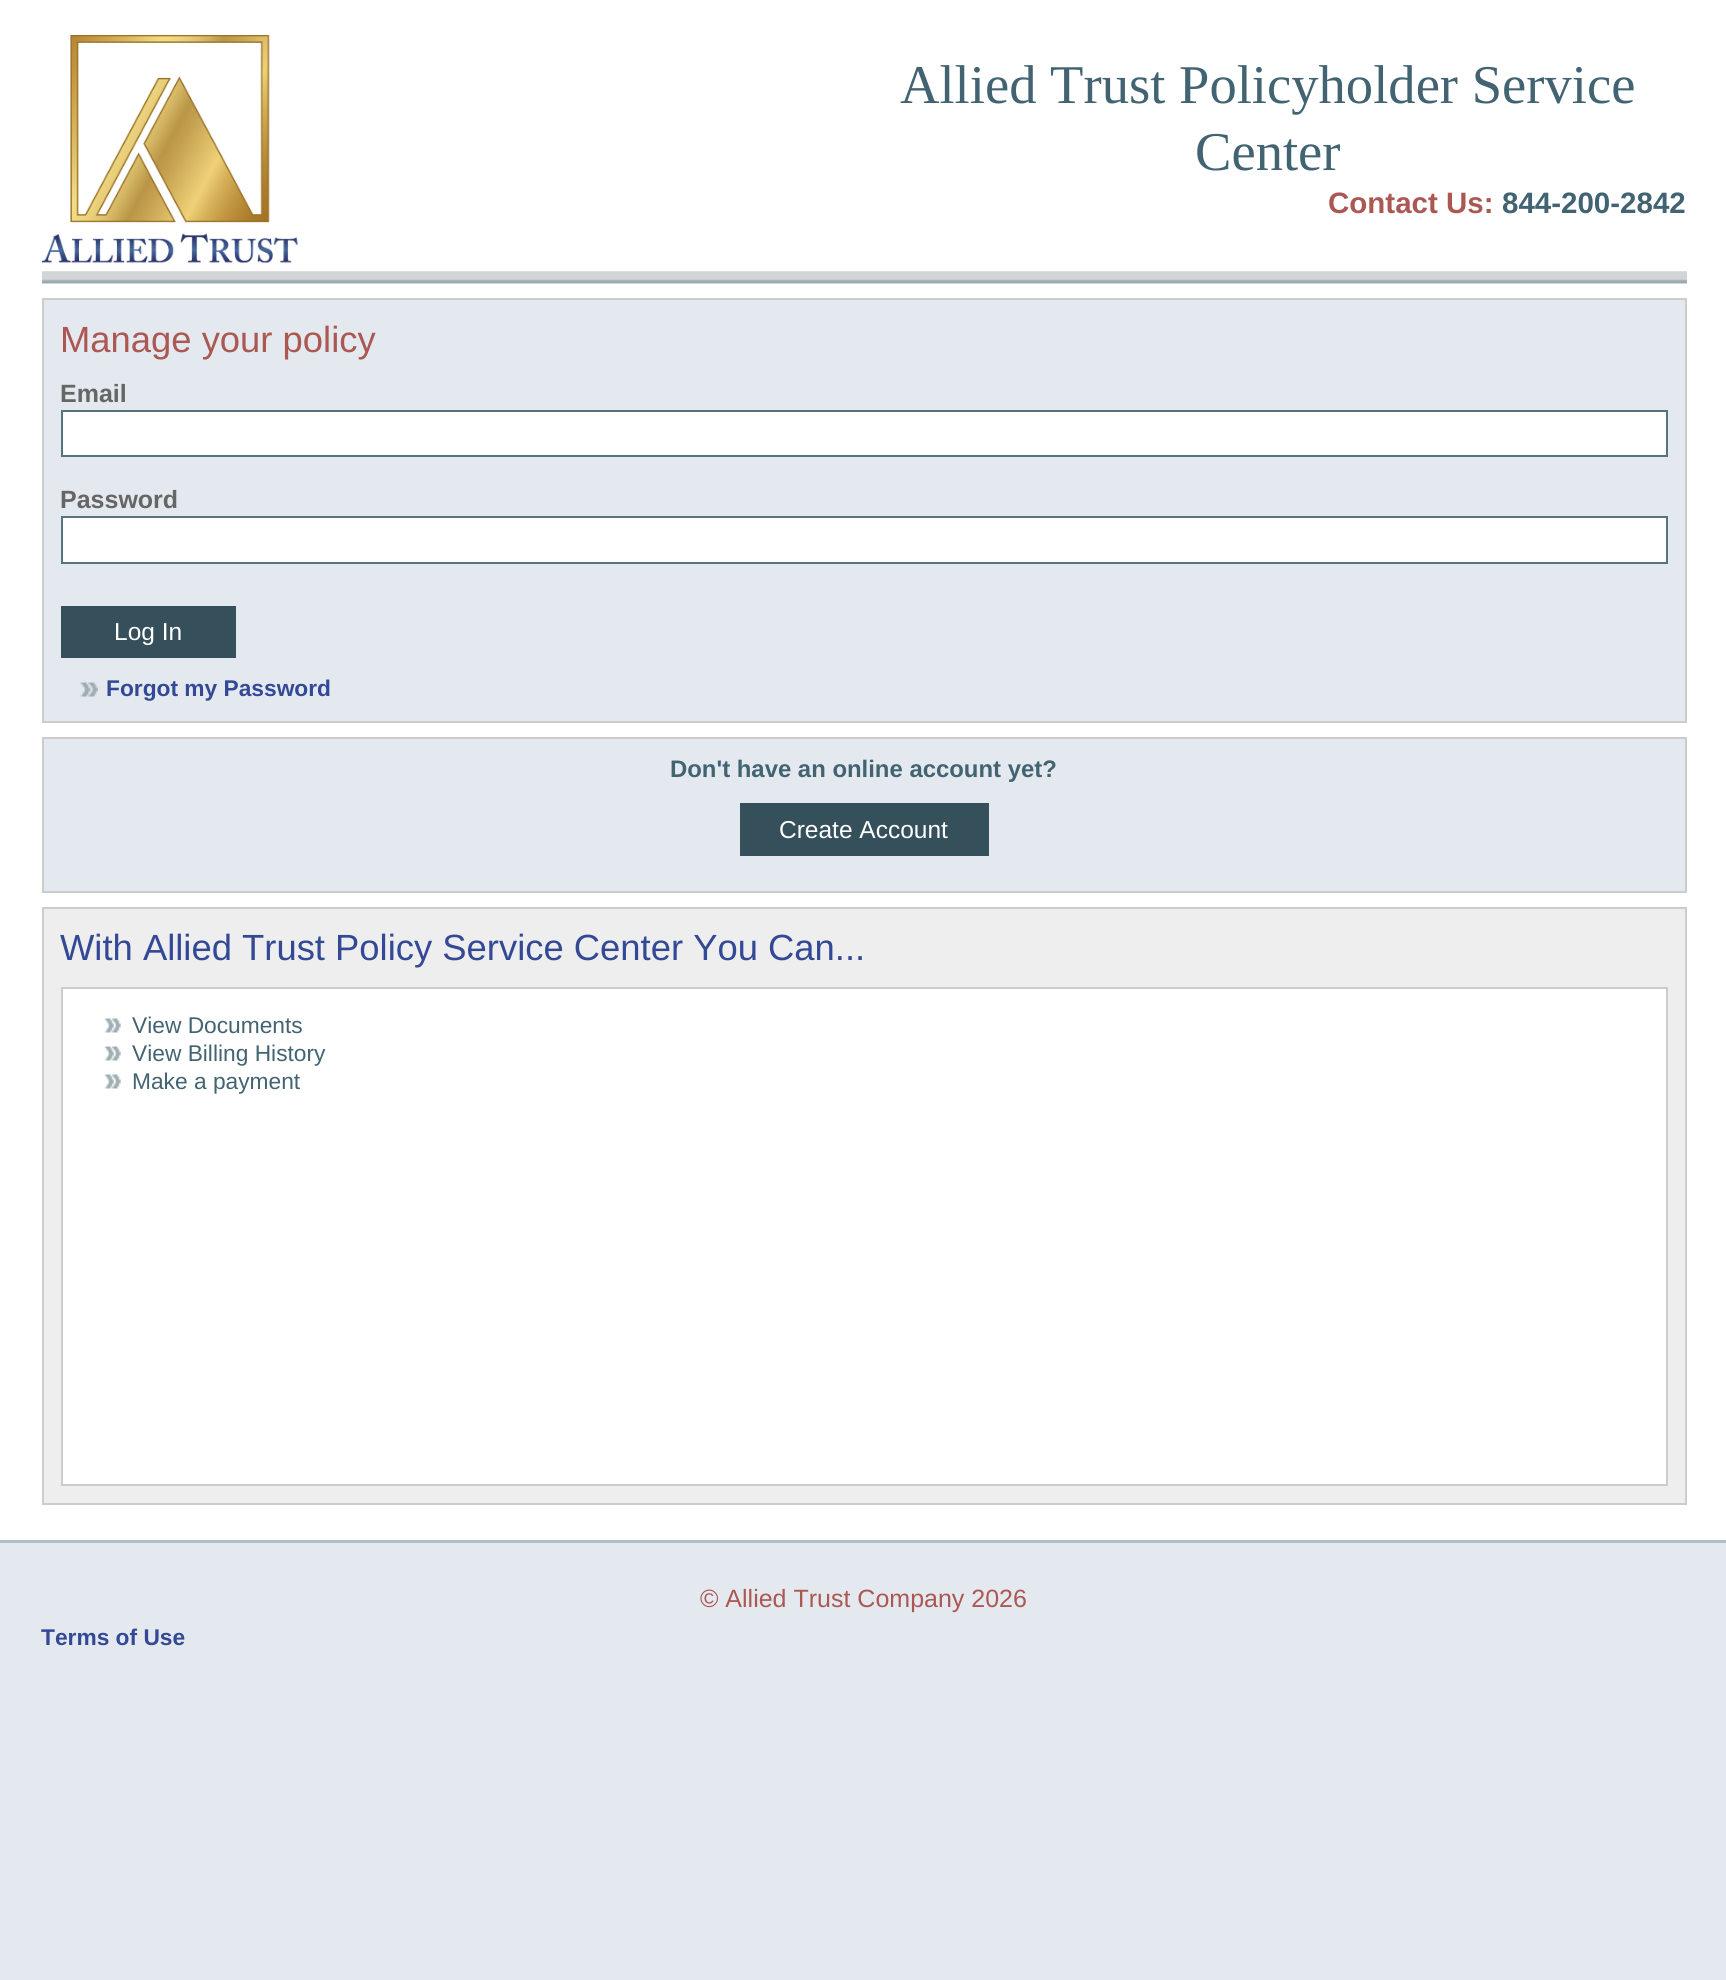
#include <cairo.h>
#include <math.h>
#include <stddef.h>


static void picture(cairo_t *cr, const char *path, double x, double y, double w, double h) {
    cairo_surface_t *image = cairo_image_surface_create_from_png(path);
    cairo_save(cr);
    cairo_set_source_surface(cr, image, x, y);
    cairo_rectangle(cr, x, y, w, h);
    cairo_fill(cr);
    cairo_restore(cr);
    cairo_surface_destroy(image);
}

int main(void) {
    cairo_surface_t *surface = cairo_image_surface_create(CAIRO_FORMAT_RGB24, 1726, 1980);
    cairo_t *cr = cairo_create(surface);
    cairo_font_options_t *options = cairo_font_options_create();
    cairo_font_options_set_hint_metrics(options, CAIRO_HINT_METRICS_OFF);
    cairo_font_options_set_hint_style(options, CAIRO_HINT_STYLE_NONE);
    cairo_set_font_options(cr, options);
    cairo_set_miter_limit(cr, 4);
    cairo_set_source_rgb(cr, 0.894, 0.914, 0.937);
    cairo_paint(cr);
    cairo_set_source_rgb(cr, 1, 1, 1);
    cairo_rectangle(cr, 0, 0, 1726, 1540);
    cairo_fill(cr);
    picture(cr, "img1.png", 42, 35, 256, 228);
    cairo_select_font_face(cr, "Liberation Serif", CAIRO_FONT_SLANT_NORMAL, CAIRO_FONT_WEIGHT_NORMAL);
    cairo_set_font_size(cr, 54.6);
    cairo_set_source_rgb(cr, 0.259, 0.392, 0.447);
    cairo_move_to(cr, 900, 103);
    cairo_show_text(cr, "Allied Trust Policyholder Service");
    cairo_move_to(cr, 1195, 170);
    cairo_show_text(cr, "Center");
    cairo_select_font_face(cr, "Liberation Sans", CAIRO_FONT_SLANT_NORMAL, CAIRO_FONT_WEIGHT_BOLD);
    cairo_set_font_size(cr, 29.5);
    cairo_set_source_rgb(cr, 0.675, 0.345, 0.322);
    cairo_move_to(cr, 1328, 213);
    cairo_show_text(cr, "Contact Us:");
    cairo_set_source_rgb(cr, 0.259, 0.392, 0.447);
    cairo_move_to(cr, 1502, 213);
    cairo_show_text(cr, "844-200-2842");
    picture(cr, "img2.png", 42, 271, 1645, 13);
    cairo_set_source_rgb(cr, 0.894, 0.914, 0.937);
    cairo_rectangle(cr, 43, 299, 1643, 423);
    cairo_fill_preserve(cr);
    cairo_set_source_rgb(cr, 0.8, 0.8, 0.796);
    cairo_stroke(cr);
    cairo_select_font_face(cr, "Liberation Sans", CAIRO_FONT_SLANT_NORMAL, CAIRO_FONT_WEIGHT_NORMAL);
    cairo_set_font_size(cr, 36.4);
    cairo_set_source_rgb(cr, 0.675, 0.345, 0.322);
    cairo_move_to(cr, 60, 352);
    cairo_show_text(cr, "Manage your policy");
    cairo_select_font_face(cr, "Liberation Sans", CAIRO_FONT_SLANT_NORMAL, CAIRO_FONT_WEIGHT_BOLD);
    cairo_set_font_size(cr, 25);
    cairo_set_source_rgb(cr, 0.4, 0.4, 0.4);
    cairo_move_to(cr, 60, 402);
    cairo_show_text(cr, "Email");
    cairo_set_source_rgb(cr, 1, 1, 1);
    cairo_rectangle(cr, 62, 411, 1605, 45);
    cairo_fill_preserve(cr);
    cairo_set_source_rgb(cr, 0.333, 0.455, 0.502);
    cairo_stroke(cr);
    cairo_set_source_rgb(cr, 0.4, 0.4, 0.4);
    cairo_move_to(cr, 60, 508);
    cairo_show_text(cr, "Password");
    cairo_set_source_rgb(cr, 1, 1, 1);
    cairo_rectangle(cr, 62, 517, 1605, 46);
    cairo_fill_preserve(cr);
    cairo_set_source_rgb(cr, 0.333, 0.455, 0.502);
    cairo_stroke(cr);
    cairo_set_source_rgb(cr, 0.208, 0.314, 0.357);
    cairo_rectangle(cr, 61, 606, 175, 52);
    cairo_fill(cr);
    cairo_select_font_face(cr, "Liberation Sans", CAIRO_FONT_SLANT_NORMAL, CAIRO_FONT_WEIGHT_NORMAL);
    cairo_set_font_size(cr, 24.5);
    cairo_set_source_rgb(cr, 1, 1, 1);
    cairo_move_to(cr, 114, 640);
    cairo_show_text(cr, "Log In");
    picture(cr, "img3.png", 80, 682, 18, 15);
    cairo_select_font_face(cr, "Liberation Sans", CAIRO_FONT_SLANT_NORMAL, CAIRO_FONT_WEIGHT_BOLD);
    cairo_set_font_size(cr, 22.75);
    cairo_set_source_rgb(cr, 0.204, 0.286, 0.588);
    cairo_move_to(cr, 106, 696);
    cairo_show_text(cr, "Forgot my Password");
    cairo_set_source_rgb(cr, 0.894, 0.914, 0.937);
    cairo_rectangle(cr, 43, 738, 1643, 154);
    cairo_fill_preserve(cr);
    cairo_set_source_rgb(cr, 0.8, 0.8, 0.796);
    cairo_stroke(cr);
    cairo_set_font_size(cr, 23.9);
    cairo_set_source_rgb(cr, 0.259, 0.392, 0.447);
    cairo_move_to(cr, 670, 777);
    cairo_show_text(cr, "Don't have an online account yet?");
    cairo_set_source_rgb(cr, 0.208, 0.314, 0.357);
    cairo_rectangle(cr, 740, 803, 249, 53);
    cairo_fill(cr);
    cairo_select_font_face(cr, "Liberation Sans", CAIRO_FONT_SLANT_NORMAL, CAIRO_FONT_WEIGHT_NORMAL);
    cairo_set_font_size(cr, 24.5);
    cairo_set_source_rgb(cr, 1, 1, 1);
    cairo_move_to(cr, 779, 838);
    cairo_show_text(cr, "Create Account");
    cairo_set_source_rgb(cr, 0.933, 0.933, 0.933);
    cairo_rectangle(cr, 43, 908, 1643, 596);
    cairo_fill_preserve(cr);
    cairo_set_source_rgb(cr, 0.8, 0.8, 0.796);
    cairo_stroke(cr);
    cairo_set_font_size(cr, 36.4);
    cairo_set_source_rgb(cr, 0.204, 0.286, 0.588);
    cairo_move_to(cr, 60, 960);
    cairo_show_text(cr, "With Allied Trust Policy Service Center You Can...");
    cairo_set_source_rgb(cr, 1, 1, 1);
    cairo_rectangle(cr, 62, 988, 1605, 497);
    cairo_fill_preserve(cr);
    cairo_set_source_rgb(cr, 0.8, 0.8, 0.796);
    cairo_stroke(cr);
    picture(cr, "img4.png", 104, 1018, 17, 15);
    cairo_set_font_size(cr, 22.75);
    cairo_set_source_rgb(cr, 0.259, 0.392, 0.447);
    cairo_move_to(cr, 132, 1033);
    cairo_show_text(cr, "View Documents");
    picture(cr, "img4.png", 104, 1046, 17, 15);
    cairo_move_to(cr, 132, 1061);
    cairo_show_text(cr, "View Billing History");
    picture(cr, "img4.png", 104, 1074, 17, 15);
    cairo_move_to(cr, 132, 1089);
    cairo_show_text(cr, "Make a payment");
    cairo_set_source_rgb(cr, 0.698, 0.745, 0.773);
    cairo_rectangle(cr, 0, 1540, 1726, 3);
    cairo_fill(cr);
    cairo_set_font_size(cr, 25);
    cairo_set_source_rgb(cr, 0.675, 0.345, 0.322);
    cairo_move_to(cr, 700, 1607);
    cairo_show_text(cr, "© Allied Trust Company 2026");
    cairo_select_font_face(cr, "Liberation Sans", CAIRO_FONT_SLANT_NORMAL, CAIRO_FONT_WEIGHT_BOLD);
    cairo_set_font_size(cr, 22.75);
    cairo_set_source_rgb(cr, 0.204, 0.286, 0.588);
    cairo_move_to(cr, 41, 1645);
    cairo_show_text(cr, "Terms of Use");
    cairo_surface_write_to_png(surface, "page.png");
    cairo_font_options_destroy(options);
    cairo_destroy(cr);
    cairo_surface_destroy(surface);
    return 0;
}
